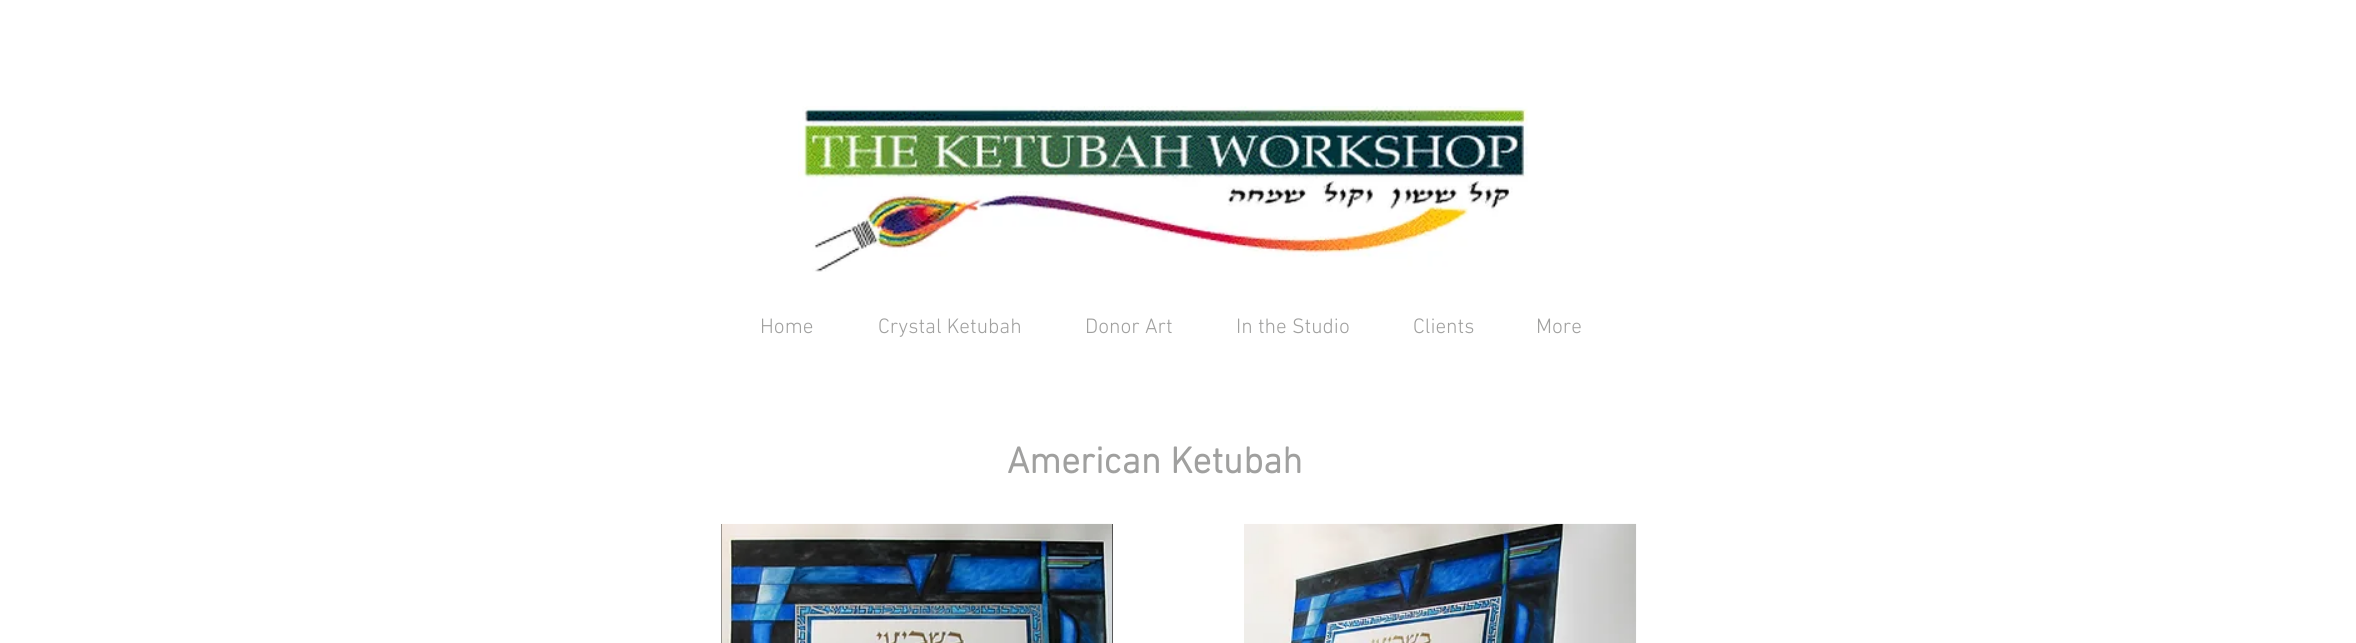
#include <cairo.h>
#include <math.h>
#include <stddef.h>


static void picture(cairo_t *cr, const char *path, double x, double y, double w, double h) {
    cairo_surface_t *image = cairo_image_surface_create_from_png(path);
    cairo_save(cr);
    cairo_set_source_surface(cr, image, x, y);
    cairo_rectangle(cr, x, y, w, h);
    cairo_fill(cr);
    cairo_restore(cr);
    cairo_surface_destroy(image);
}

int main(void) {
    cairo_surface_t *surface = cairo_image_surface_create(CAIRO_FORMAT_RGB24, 2356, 643);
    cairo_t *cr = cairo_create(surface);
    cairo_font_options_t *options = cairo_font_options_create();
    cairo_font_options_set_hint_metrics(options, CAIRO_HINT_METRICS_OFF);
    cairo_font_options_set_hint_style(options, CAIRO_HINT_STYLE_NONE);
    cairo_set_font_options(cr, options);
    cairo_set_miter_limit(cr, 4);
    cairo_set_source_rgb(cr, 1, 1, 1);
    cairo_paint(cr);
    picture(cr, "img1.png", 798, 106, 730, 166);
    cairo_select_font_face(cr, "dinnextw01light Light", CAIRO_FONT_SLANT_NORMAL, CAIRO_FONT_WEIGHT_NORMAL);
    cairo_set_font_size(cr, 21.25);
    cairo_set_source_rgb(cr, 0.627, 0.627, 0.624);
    cairo_move_to(cr, 760, 333);
    cairo_show_text(cr, "Home");
    cairo_move_to(cr, 878, 333);
    cairo_show_text(cr, "Crystal Ketubah");
    cairo_move_to(cr, 1085, 333);
    cairo_show_text(cr, "Donor Art");
    cairo_move_to(cr, 1236, 333);
    cairo_show_text(cr, "In the Studio");
    cairo_move_to(cr, 1413, 333);
    cairo_show_text(cr, "Clients");
    cairo_move_to(cr, 1536, 333);
    cairo_show_text(cr, "More");
    cairo_select_font_face(cr, "dinnextw01light", CAIRO_FONT_SLANT_NORMAL, CAIRO_FONT_WEIGHT_BOLD);
    cairo_set_font_size(cr, 37.5);
    cairo_move_to(cr, 1007, 473);
    cairo_show_text(cr, "American Ketubah");
    cairo_set_source_rgb(cr, 0.184, 0.18, 0.18);
    cairo_rectangle(cr, 721, 524, 392, 119);
    cairo_fill(cr);
    picture(cr, "img2.png", 721, 523, 392, 120);
    picture(cr, "img3.png", 1244, 523, 393, 120);
    cairo_surface_write_to_png(surface, "page.png");
    cairo_font_options_destroy(options);
    cairo_destroy(cr);
    cairo_surface_destroy(surface);
    return 0;
}
